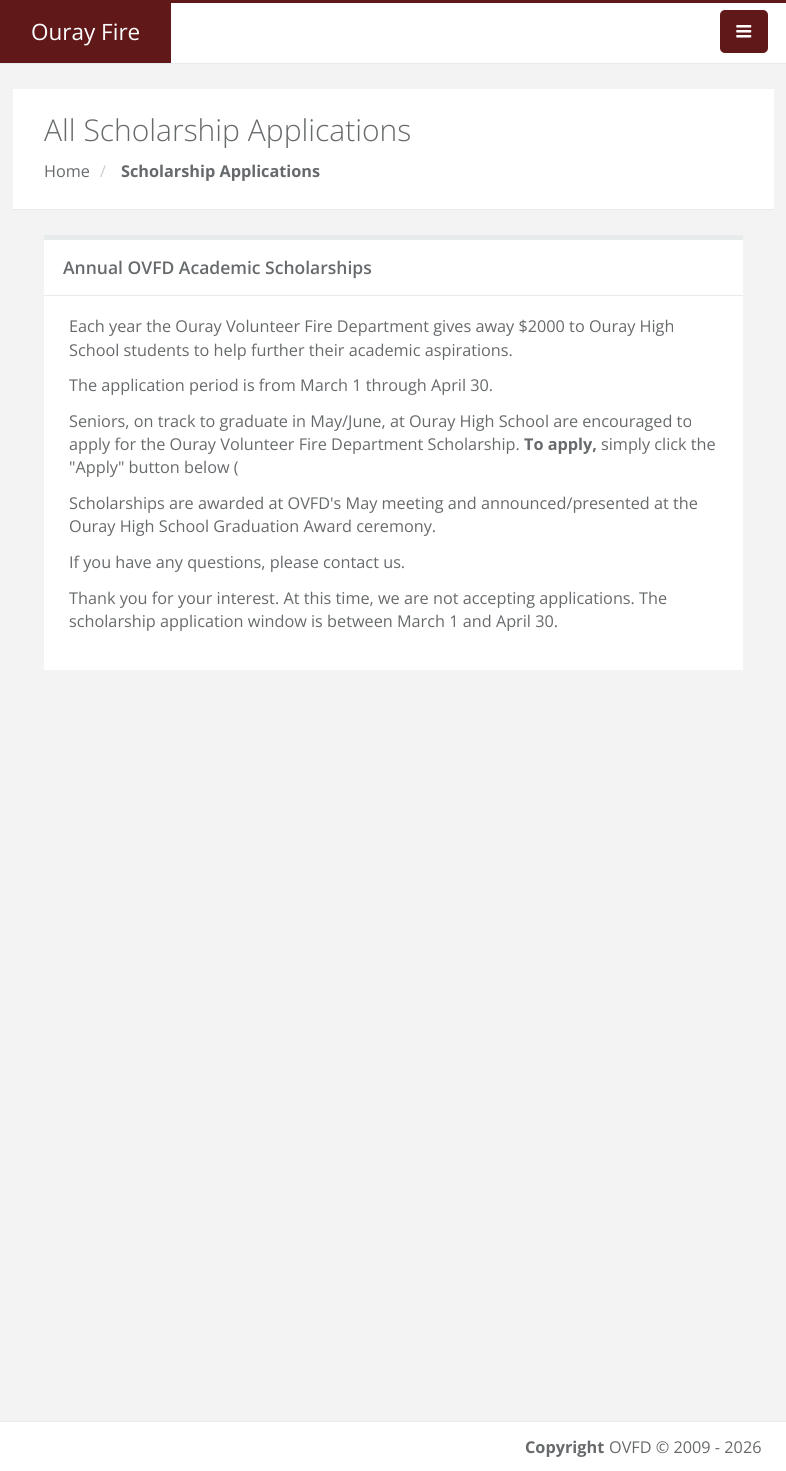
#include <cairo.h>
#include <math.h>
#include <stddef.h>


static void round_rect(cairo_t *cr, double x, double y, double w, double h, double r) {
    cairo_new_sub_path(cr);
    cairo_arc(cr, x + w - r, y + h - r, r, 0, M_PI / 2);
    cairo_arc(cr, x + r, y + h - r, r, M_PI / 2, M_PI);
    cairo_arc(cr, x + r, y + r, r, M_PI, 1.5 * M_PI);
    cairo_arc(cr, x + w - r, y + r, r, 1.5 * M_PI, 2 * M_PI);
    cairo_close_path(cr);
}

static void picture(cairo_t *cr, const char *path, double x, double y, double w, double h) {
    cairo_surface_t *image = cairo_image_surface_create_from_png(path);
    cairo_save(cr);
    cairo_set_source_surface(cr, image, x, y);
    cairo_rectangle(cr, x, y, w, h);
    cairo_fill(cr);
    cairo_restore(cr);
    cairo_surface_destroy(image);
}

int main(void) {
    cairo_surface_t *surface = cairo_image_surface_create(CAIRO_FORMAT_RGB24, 786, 1471);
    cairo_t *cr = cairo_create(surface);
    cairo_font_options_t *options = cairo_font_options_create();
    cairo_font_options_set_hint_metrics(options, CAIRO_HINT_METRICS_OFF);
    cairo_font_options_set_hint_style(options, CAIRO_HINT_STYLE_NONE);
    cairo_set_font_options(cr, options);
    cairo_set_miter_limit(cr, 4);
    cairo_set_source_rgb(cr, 0.953, 0.953, 0.957);
    cairo_paint(cr);
    cairo_set_source_rgb(cr, 0.376, 0.098, 0.094);
    cairo_rectangle(cr, 0, 0, 786, 3);
    cairo_fill(cr);
    cairo_set_source_rgb(cr, 1, 1, 1);
    cairo_rectangle(cr, 171, 3, 615, 60);
    cairo_fill(cr);
    cairo_set_source_rgb(cr, 0.906, 0.918, 0.925);
    cairo_rectangle(cr, 0, 63, 786, 1);
    cairo_fill(cr);
    cairo_set_source_rgb(cr, 0.376, 0.098, 0.094);
    cairo_rectangle(cr, 0, 3, 171, 60);
    cairo_fill(cr);
    cairo_select_font_face(cr, "Open Sans", CAIRO_FONT_SLANT_NORMAL, CAIRO_FONT_WEIGHT_NORMAL);
    cairo_set_font_size(cr, 22.5);
    cairo_set_source_rgb(cr, 1, 1, 1);
    cairo_move_to(cr, 31, 40);
    cairo_show_text(cr, "Ouray Fire");
    cairo_set_source_rgb(cr, 0.376, 0.098, 0.094);
    round_rect(cr, 720, 10, 48, 43, 5);
    cairo_fill(cr);
    picture(cr, "img1.png", 736, 25, 16, 13);
    cairo_set_source_rgb(cr, 1, 1, 1);
    cairo_rectangle(cr, 13, 89, 761, 120);
    cairo_fill(cr);
    cairo_set_source_rgb(cr, 0.906, 0.918, 0.925);
    cairo_rectangle(cr, 13, 209, 761, 1);
    cairo_fill(cr);
    cairo_select_font_face(cr, "Open Sans Light", CAIRO_FONT_SLANT_NORMAL, CAIRO_FONT_WEIGHT_NORMAL);
    cairo_set_font_size(cr, 30);
    cairo_set_source_rgb(cr, 0.404, 0.416, 0.424);
    cairo_move_to(cr, 44, 141);
    cairo_show_text(cr, "All Scholarship Applications");
    cairo_select_font_face(cr, "Open Sans", CAIRO_FONT_SLANT_NORMAL, CAIRO_FONT_WEIGHT_NORMAL);
    cairo_set_font_size(cr, 16.25);
    cairo_move_to(cr, 44, 177);
    cairo_show_text(cr, "Home");
    cairo_set_source_rgb(cr, 0.8, 0.8, 0.8);
    cairo_move_to(cr, 100, 177);
    cairo_show_text(cr, "/");
    cairo_select_font_face(cr, "Open Sans", CAIRO_FONT_SLANT_NORMAL, CAIRO_FONT_WEIGHT_BOLD);
    cairo_set_source_rgb(cr, 0.404, 0.416, 0.424);
    cairo_move_to(cr, 121, 177);
    cairo_show_text(cr, "Scholarship Applications");
    cairo_set_source_rgb(cr, 1, 1, 1);
    cairo_rectangle(cr, 44, 240, 699, 55);
    cairo_fill(cr);
    cairo_set_source_rgb(cr, 0.906, 0.918, 0.925);
    cairo_rectangle(cr, 44, 235, 699, 5);
    cairo_fill(cr);
    cairo_select_font_face(cr, "Open Sans SemiBold", CAIRO_FONT_SLANT_NORMAL, CAIRO_FONT_WEIGHT_NORMAL);
    cairo_set_font_size(cr, 17.5);
    cairo_set_source_rgb(cr, 0.404, 0.416, 0.424);
    cairo_move_to(cr, 63, 274);
    cairo_show_text(cr, "Annual OVFD Academic Scholarships");
    cairo_set_source_rgb(cr, 1, 1, 1);
    cairo_rectangle(cr, 44, 296, 699, 374);
    cairo_fill(cr);
    cairo_set_source_rgb(cr, 0.906, 0.918, 0.925);
    cairo_rectangle(cr, 44, 295, 699, 1);
    cairo_fill(cr);
    cairo_select_font_face(cr, "Open Sans", CAIRO_FONT_SLANT_NORMAL, CAIRO_FONT_WEIGHT_NORMAL);
    cairo_set_font_size(cr, 16.25);
    cairo_set_source_rgb(cr, 0.404, 0.416, 0.424);
    cairo_move_to(cr, 69, 332);
    cairo_show_text(cr, "Each year the Ouray Volunteer Fire Department gives away $2000 to Ouray High");
    cairo_move_to(cr, 69, 356);
    cairo_show_text(cr, "School students to help further their academic aspirations.");
    cairo_move_to(cr, 69, 391);
    cairo_show_text(cr, "The application period is from March 1 through April 30.");
    cairo_move_to(cr, 69, 427);
    cairo_show_text(cr, "Seniors, on track to graduate in May/June, at Ouray High School are encouraged to");
    cairo_move_to(cr, 69, 450);
    cairo_show_text(cr, "apply for the Ouray Volunteer Fire Department Scholarship.");
    cairo_select_font_face(cr, "Open Sans", CAIRO_FONT_SLANT_NORMAL, CAIRO_FONT_WEIGHT_BOLD);
    cairo_move_to(cr, 524, 450);
    cairo_show_text(cr, "To apply,");
    cairo_select_font_face(cr, "Open Sans", CAIRO_FONT_SLANT_NORMAL, CAIRO_FONT_WEIGHT_NORMAL);
    cairo_move_to(cr, 601, 450);
    cairo_show_text(cr, "simply click the");
    cairo_move_to(cr, 69, 473);
    cairo_show_text(cr, "\"Apply\" button below (");
    cairo_move_to(cr, 69, 509);
    cairo_show_text(cr, "Scholarships are awarded at OVFD's May meeting and announced/presented at the");
    cairo_move_to(cr, 69, 532);
    cairo_show_text(cr, "Ouray High School Graduation Award ceremony.");
    cairo_move_to(cr, 69, 568);
    cairo_show_text(cr, "If you have any questions, please contact us.");
    cairo_move_to(cr, 69, 604);
    cairo_show_text(cr, "Thank you for your interest. At this time, we are not accepting applications. The");
    cairo_move_to(cr, 69, 627);
    cairo_show_text(cr, "scholarship application window is between March 1 and April 30.");
    cairo_set_source_rgb(cr, 1, 1, 1);
    cairo_rectangle(cr, 0, 1422, 786, 49);
    cairo_fill(cr);
    cairo_set_source_rgb(cr, 0.906, 0.918, 0.925);
    cairo_rectangle(cr, 0, 1421, 786, 1);
    cairo_fill(cr);
    cairo_select_font_face(cr, "Open Sans", CAIRO_FONT_SLANT_NORMAL, CAIRO_FONT_WEIGHT_BOLD);
    cairo_set_source_rgb(cr, 0.404, 0.416, 0.424);
    cairo_move_to(cr, 525, 1453);
    cairo_show_text(cr, "Copyright");
    cairo_select_font_face(cr, "Open Sans", CAIRO_FONT_SLANT_NORMAL, CAIRO_FONT_WEIGHT_NORMAL);
    cairo_move_to(cr, 609, 1453);
    cairo_show_text(cr, "OVFD © 2009 - 2026");
    cairo_surface_write_to_png(surface, "page.png");
    cairo_font_options_destroy(options);
    cairo_destroy(cr);
    cairo_surface_destroy(surface);
    return 0;
}
